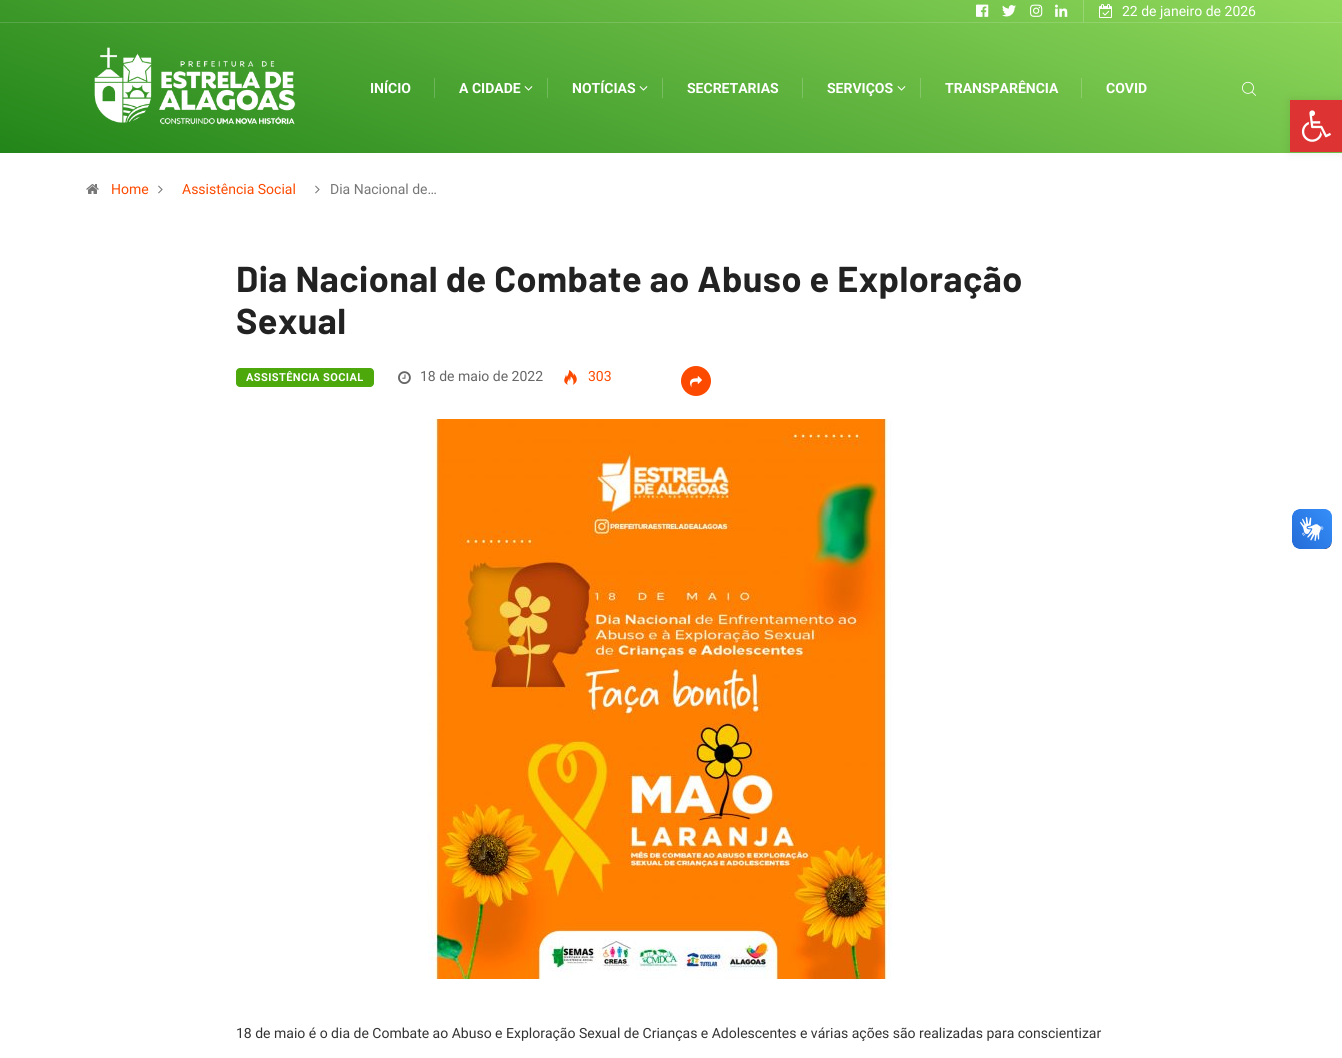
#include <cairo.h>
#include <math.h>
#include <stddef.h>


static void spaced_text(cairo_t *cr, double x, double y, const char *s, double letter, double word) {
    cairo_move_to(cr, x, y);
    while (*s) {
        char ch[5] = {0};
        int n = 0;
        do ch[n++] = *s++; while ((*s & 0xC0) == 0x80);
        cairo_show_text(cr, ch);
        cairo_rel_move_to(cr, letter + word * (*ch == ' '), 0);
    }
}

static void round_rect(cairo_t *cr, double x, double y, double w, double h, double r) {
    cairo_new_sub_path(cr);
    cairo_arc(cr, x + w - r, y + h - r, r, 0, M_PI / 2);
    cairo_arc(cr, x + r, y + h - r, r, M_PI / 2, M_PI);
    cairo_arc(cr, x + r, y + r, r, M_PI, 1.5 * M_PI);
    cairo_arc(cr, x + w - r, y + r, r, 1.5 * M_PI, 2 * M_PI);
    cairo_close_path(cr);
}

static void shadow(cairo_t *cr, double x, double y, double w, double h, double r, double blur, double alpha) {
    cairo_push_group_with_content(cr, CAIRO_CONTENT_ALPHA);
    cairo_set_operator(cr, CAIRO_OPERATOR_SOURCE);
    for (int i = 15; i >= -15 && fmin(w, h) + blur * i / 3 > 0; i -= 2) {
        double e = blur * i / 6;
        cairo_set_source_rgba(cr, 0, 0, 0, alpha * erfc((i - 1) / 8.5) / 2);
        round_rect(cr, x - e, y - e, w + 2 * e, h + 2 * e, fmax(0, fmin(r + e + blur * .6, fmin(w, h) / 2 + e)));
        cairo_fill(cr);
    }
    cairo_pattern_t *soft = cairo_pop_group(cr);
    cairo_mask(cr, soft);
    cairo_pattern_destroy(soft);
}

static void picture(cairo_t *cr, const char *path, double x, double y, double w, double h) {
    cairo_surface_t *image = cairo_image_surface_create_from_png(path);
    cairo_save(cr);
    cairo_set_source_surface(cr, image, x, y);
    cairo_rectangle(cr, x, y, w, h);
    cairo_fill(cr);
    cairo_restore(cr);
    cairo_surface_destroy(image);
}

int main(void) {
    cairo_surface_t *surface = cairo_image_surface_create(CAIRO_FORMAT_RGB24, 1342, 1058);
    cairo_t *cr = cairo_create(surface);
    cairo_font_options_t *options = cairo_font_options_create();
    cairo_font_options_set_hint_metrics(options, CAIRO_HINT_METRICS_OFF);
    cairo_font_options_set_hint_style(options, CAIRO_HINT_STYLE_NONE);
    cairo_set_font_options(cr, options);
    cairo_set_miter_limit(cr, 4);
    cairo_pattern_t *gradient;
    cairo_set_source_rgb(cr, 1, 1, 1);
    cairo_paint(cr);
    gradient = cairo_pattern_create_linear(568, 360, 774, -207);
    cairo_pattern_add_color_stop_rgba(gradient, 0, 0.133, 0.522, 0.098, 1);
    cairo_pattern_add_color_stop_rgba(gradient, 1, 0.569, 0.851, 0.361, 1);
    cairo_set_source(cr, gradient);
    cairo_pattern_destroy(gradient);
    cairo_rectangle(cr, 0, 0, 1342, 153);
    cairo_fill(cr);
    gradient = cairo_pattern_create_linear(568, 360, 774, -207);
    cairo_pattern_add_color_stop_rgba(gradient, 0, 0.306, 0.616, 0.278, 1);
    cairo_pattern_add_color_stop_rgba(gradient, 1, 0.655, 0.882, 0.49, 1);
    cairo_set_source(cr, gradient);
    cairo_pattern_destroy(gradient);
    cairo_rectangle(cr, 1081, 78, 1, 20);
    cairo_fill(cr);
    cairo_rectangle(cr, 920, 78, 1, 20);
    cairo_fill(cr);
    cairo_rectangle(cr, 802, 78, 1, 20);
    cairo_fill(cr);
    cairo_rectangle(cr, 662, 78, 1, 20);
    cairo_fill(cr);
    cairo_rectangle(cr, 547, 78, 1, 20);
    cairo_fill(cr);
    cairo_rectangle(cr, 434, 78, 1, 20);
    cairo_fill(cr);
    cairo_rectangle(cr, 1083, 0, 1, 22);
    cairo_fill(cr);
    gradient = cairo_pattern_create_linear(568, 360, 774, -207);
    cairo_pattern_add_color_stop_rgba(gradient, 0, 0.263, 0.592, 0.235, 1);
    cairo_pattern_add_color_stop_rgba(gradient, 1, 0.635, 0.875, 0.455, 1);
    cairo_set_source(cr, gradient);
    cairo_pattern_destroy(gradient);
    cairo_rectangle(cr, 0, 22, 1342, 1);
    cairo_fill(cr);
    picture(cr, "img1.png", 976, 4, 13, 13);
    picture(cr, "img2.png", 1002, 5, 14, 12);
    picture(cr, "img3.png", 1030, 4, 13, 13);
    picture(cr, "img4.png", 1055, 4, 13, 13);
    picture(cr, "img5.png", 1099, 4, 13, 14);
    cairo_select_font_face(cr, "Roboto", CAIRO_FONT_SLANT_NORMAL, CAIRO_FONT_WEIGHT_NORMAL);
    cairo_set_font_size(cr, 14);
    cairo_set_source_rgb(cr, 1, 1, 1);
    cairo_move_to(cr, 1122, 16);
    cairo_show_text(cr, "22 de janeiro de 2026");
    picture(cr, "img6.png", 94, 47, 202, 78);
    cairo_select_font_face(cr, "Roboto", CAIRO_FONT_SLANT_NORMAL, CAIRO_FONT_WEIGHT_BOLD);
    cairo_move_to(cr, 370, 93);
    cairo_show_text(cr, "INÍCIO");
    cairo_move_to(cr, 459, 93);
    cairo_show_text(cr, "A CIDADE");
    picture(cr, "img7.png", 524, 86, 9, 5);
    cairo_move_to(cr, 572, 93);
    cairo_show_text(cr, "NOTÍCIAS");
    picture(cr, "img8.png", 639, 86, 9, 5);
    cairo_move_to(cr, 687, 93);
    cairo_show_text(cr, "SECRETARIAS");
    cairo_move_to(cr, 827, 93);
    cairo_show_text(cr, "SERVIÇOS");
    picture(cr, "img9.png", 897, 86, 9, 5);
    cairo_move_to(cr, 945, 93);
    cairo_show_text(cr, "TRANSPARÊNCIA");
    cairo_move_to(cr, 1106, 93);
    cairo_show_text(cr, "COVID");
    picture(cr, "img10.png", 1242, 81, 14, 15);
    picture(cr, "img11.png", 86, 184, 13, 10);
    cairo_select_font_face(cr, "Roboto", CAIRO_FONT_SLANT_NORMAL, CAIRO_FONT_WEIGHT_NORMAL);
    cairo_set_source_rgb(cr, 0.988, 0.29, 0);
    cairo_move_to(cr, 111, 194);
    cairo_show_text(cr, "Home");
    picture(cr, "img12.png", 158, 185, 5, 9);
    cairo_move_to(cr, 182, 194);
    cairo_show_text(cr, "Assistência Social");
    picture(cr, "img12.png", 315, 185, 5, 9);
    cairo_set_source_rgb(cr, 0.467, 0.467, 0.467);
    cairo_move_to(cr, 330, 194);
    cairo_show_text(cr, "Dia Nacional de…");
    cairo_select_font_face(cr, "Barlow", CAIRO_FONT_SLANT_NORMAL, CAIRO_FONT_WEIGHT_BOLD);
    cairo_set_font_size(cr, 36);
    cairo_set_source_rgb(cr, 0.133, 0.133, 0.133);
    spaced_text(cr, 236, 292, "Dia Nacional de Combate ao Abuso e Exploração", 0.45, 0);
    spaced_text(cr, 236, 334, "Sexual", 0.45, 0);
    cairo_set_source_rgb(cr, 0.298, 0.659, 0.043);
    round_rect(cr, 236, 368, 138, 19, 4);
    cairo_fill(cr);
    cairo_select_font_face(cr, "Roboto", CAIRO_FONT_SLANT_NORMAL, CAIRO_FONT_WEIGHT_BOLD);
    cairo_set_font_size(cr, 11);
    cairo_set_source_rgb(cr, 1, 1, 1);
    spaced_text(cr, 246, 381, "ASSISTÊNCIA SOCIAL", 0.4, 0);
    picture(cr, "img13.png", 398, 371, 13, 14);
    cairo_select_font_face(cr, "Roboto", CAIRO_FONT_SLANT_NORMAL, CAIRO_FONT_WEIGHT_NORMAL);
    cairo_set_font_size(cr, 14);
    cairo_set_source_rgb(cr, 0.4, 0.4, 0.4);
    cairo_move_to(cr, 420, 381);
    cairo_show_text(cr, "18 de maio de 2022");
    picture(cr, "img14.png", 564, 370, 13, 15);
    cairo_set_source_rgb(cr, 0.988, 0.29, 0);
    cairo_move_to(cr, 588, 381);
    cairo_show_text(cr, "303");
    cairo_new_path(cr);
    cairo_arc(cr, 696, 381, 15, 0, 2 * M_PI);
    cairo_fill(cr);
    picture(cr, "img15.png", 690, 376, 12, 11);
    picture(cr, "img16.png", 428, 419, 464, 560);
    cairo_set_source_rgb(cr, 0.2, 0.2, 0.2);
    cairo_move_to(cr, 236, 1038);
    cairo_show_text(cr, "18 de maio é o dia de Combate ao Abuso e Exploração Sexual de Crianças e Adolescentes e várias ações são realizadas para conscientizar");
    cairo_set_source_rgb(cr, 0, 0, 0);
    shadow(cr, 1290, 100, 52, 52, 0, 5, 0.1);
    cairo_set_source_rgb(cr, 0.867, 0.2, 0.2);
    cairo_rectangle(cr, 1290, 100, 52, 52);
    cairo_fill(cr);
    picture(cr, "img17.png", 1301, 110, 30, 32);
    picture(cr, "img18.png", 1292, 509, 40, 40);
    picture(cr, "img19.png", 1292, 509, 40, 40);
    cairo_surface_write_to_png(surface, "page.png");
    cairo_font_options_destroy(options);
    cairo_destroy(cr);
    cairo_surface_destroy(surface);
    return 0;
}
